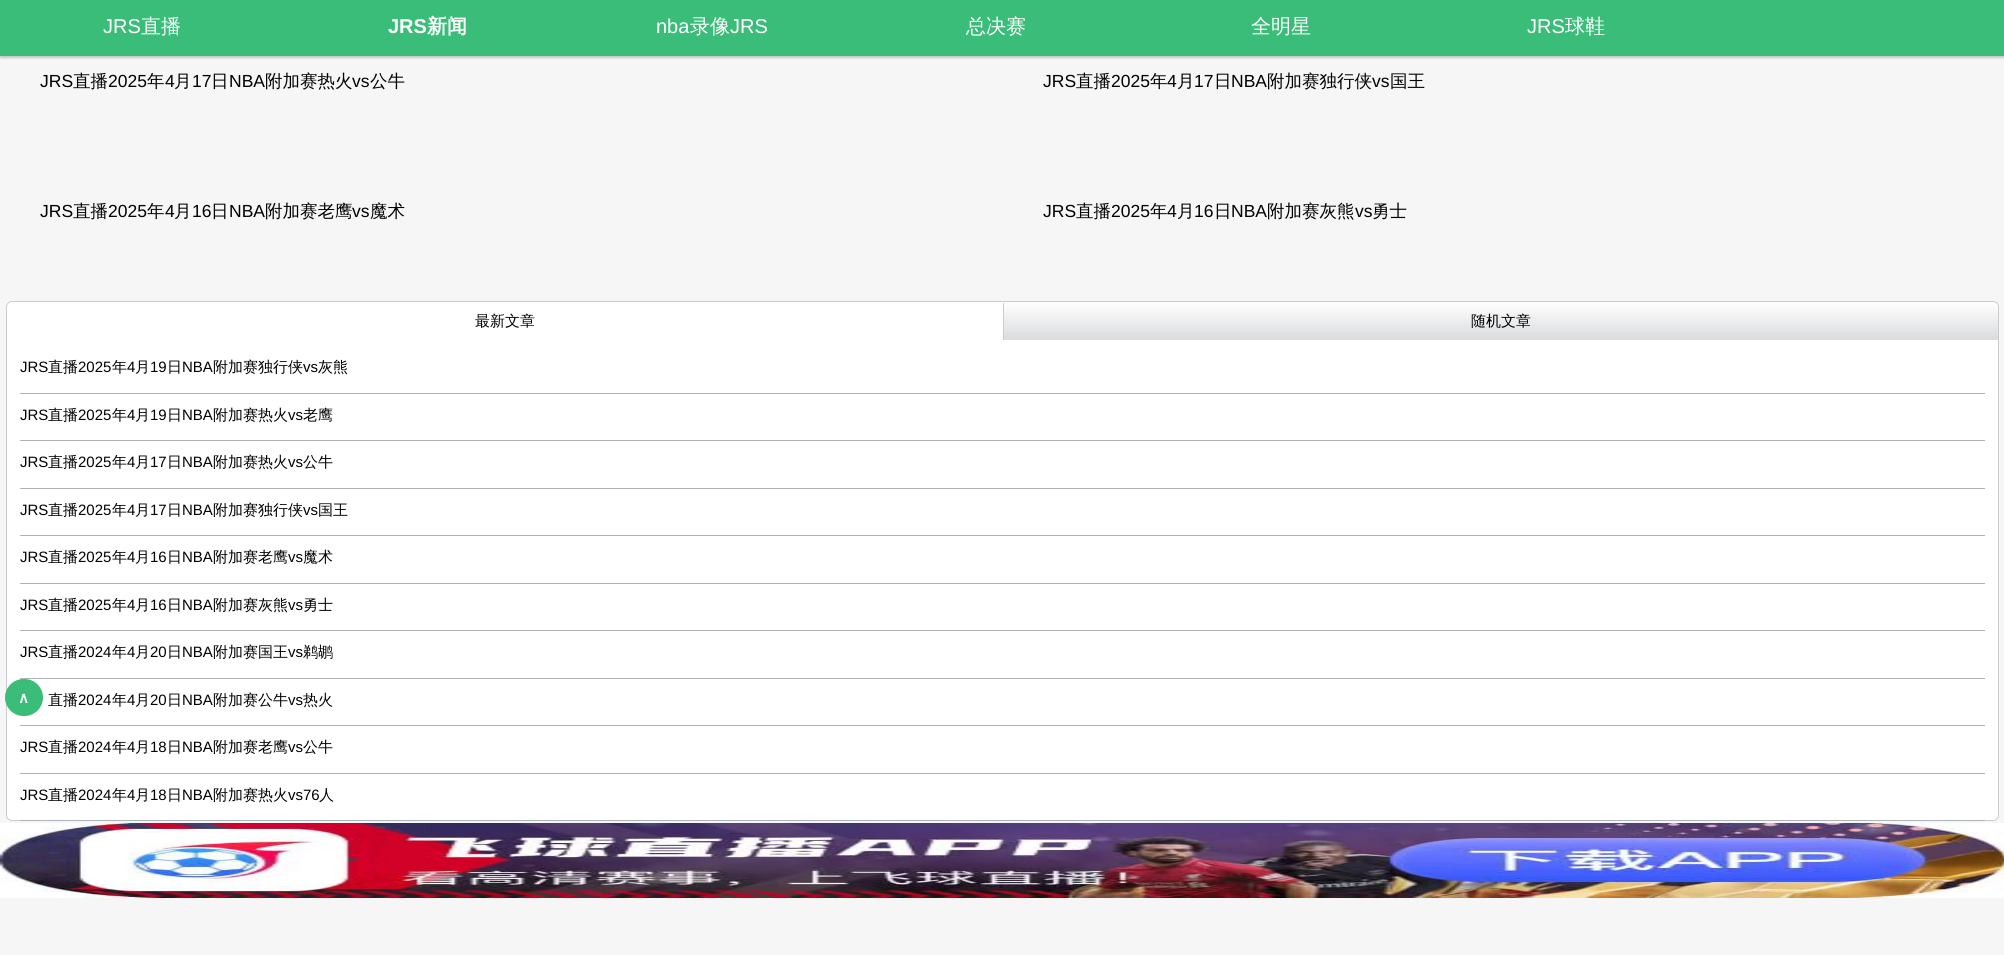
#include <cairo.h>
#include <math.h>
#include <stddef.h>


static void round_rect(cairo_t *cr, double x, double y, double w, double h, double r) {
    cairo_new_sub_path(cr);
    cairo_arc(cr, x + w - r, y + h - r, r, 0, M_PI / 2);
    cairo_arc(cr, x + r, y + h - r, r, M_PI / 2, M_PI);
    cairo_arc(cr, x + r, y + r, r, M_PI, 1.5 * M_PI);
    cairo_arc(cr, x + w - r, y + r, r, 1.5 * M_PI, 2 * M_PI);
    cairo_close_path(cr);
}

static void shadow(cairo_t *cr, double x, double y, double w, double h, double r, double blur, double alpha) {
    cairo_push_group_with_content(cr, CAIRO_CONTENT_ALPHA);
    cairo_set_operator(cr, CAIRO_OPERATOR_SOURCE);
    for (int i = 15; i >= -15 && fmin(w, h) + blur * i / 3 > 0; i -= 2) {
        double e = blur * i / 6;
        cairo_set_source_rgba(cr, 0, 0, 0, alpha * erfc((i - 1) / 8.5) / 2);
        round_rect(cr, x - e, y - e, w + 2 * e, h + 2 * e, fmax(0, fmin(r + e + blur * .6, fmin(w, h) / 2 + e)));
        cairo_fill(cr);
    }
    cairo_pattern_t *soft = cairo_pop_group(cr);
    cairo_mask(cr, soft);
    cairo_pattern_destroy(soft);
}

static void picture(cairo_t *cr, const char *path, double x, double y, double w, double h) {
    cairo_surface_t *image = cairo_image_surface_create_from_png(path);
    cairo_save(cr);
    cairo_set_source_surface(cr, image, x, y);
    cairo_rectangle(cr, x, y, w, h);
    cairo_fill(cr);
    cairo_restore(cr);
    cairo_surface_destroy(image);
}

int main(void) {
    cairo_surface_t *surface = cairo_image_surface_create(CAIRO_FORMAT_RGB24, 2004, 955);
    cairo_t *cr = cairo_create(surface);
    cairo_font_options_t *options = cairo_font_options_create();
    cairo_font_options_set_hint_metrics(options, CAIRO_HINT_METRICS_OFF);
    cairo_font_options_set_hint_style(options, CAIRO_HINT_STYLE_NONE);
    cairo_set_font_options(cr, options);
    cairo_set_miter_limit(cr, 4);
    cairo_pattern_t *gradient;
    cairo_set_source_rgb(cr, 0.961, 0.961, 0.961);
    cairo_paint(cr);
    cairo_set_source_rgb(cr, 0, 0, 0);
    shadow(cr, 0, 1, 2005, 57, 0, 1, 0.2);
    cairo_set_source_rgb(cr, 0.227, 0.741, 0.475);
    cairo_rectangle(cr, 0, 0, 2004, 56);
    cairo_fill(cr);
    cairo_select_font_face(cr, "Liberation Sans", CAIRO_FONT_SLANT_NORMAL, CAIRO_FONT_WEIGHT_NORMAL);
    cairo_set_font_size(cr, 20);
    cairo_set_source_rgb(cr, 1, 1, 1);
    cairo_move_to(cr, 103, 33);
    cairo_show_text(cr, "JRS");
    cairo_select_font_face(cr, "WenQuanYi Zen Hei Medium", CAIRO_FONT_SLANT_NORMAL, CAIRO_FONT_WEIGHT_NORMAL);
    cairo_move_to(cr, 141, 33);
    cairo_show_text(cr, "直播");
    cairo_select_font_face(cr, "Liberation Sans", CAIRO_FONT_SLANT_NORMAL, CAIRO_FONT_WEIGHT_BOLD);
    cairo_move_to(cr, 388, 33);
    cairo_show_text(cr, "JRS");
    cairo_select_font_face(cr, "WenQuanYi Zen Hei", CAIRO_FONT_SLANT_NORMAL, CAIRO_FONT_WEIGHT_BOLD);
    cairo_move_to(cr, 427, 33);
    cairo_show_text(cr, "新闻");
    cairo_select_font_face(cr, "Liberation Sans", CAIRO_FONT_SLANT_NORMAL, CAIRO_FONT_WEIGHT_NORMAL);
    cairo_move_to(cr, 656, 33);
    cairo_show_text(cr, "nba");
    cairo_select_font_face(cr, "WenQuanYi Zen Hei Medium", CAIRO_FONT_SLANT_NORMAL, CAIRO_FONT_WEIGHT_NORMAL);
    cairo_move_to(cr, 690, 33);
    cairo_show_text(cr, "录像");
    cairo_select_font_face(cr, "Liberation Sans", CAIRO_FONT_SLANT_NORMAL, CAIRO_FONT_WEIGHT_NORMAL);
    cairo_move_to(cr, 730, 33);
    cairo_show_text(cr, "JRS");
    cairo_select_font_face(cr, "WenQuanYi Zen Hei Medium", CAIRO_FONT_SLANT_NORMAL, CAIRO_FONT_WEIGHT_NORMAL);
    cairo_move_to(cr, 966, 33);
    cairo_show_text(cr, "总决赛");
    cairo_move_to(cr, 1251, 33);
    cairo_show_text(cr, "全明星");
    cairo_select_font_face(cr, "Liberation Sans", CAIRO_FONT_SLANT_NORMAL, CAIRO_FONT_WEIGHT_NORMAL);
    cairo_move_to(cr, 1527, 33);
    cairo_show_text(cr, "JRS");
    cairo_select_font_face(cr, "WenQuanYi Zen Hei Medium", CAIRO_FONT_SLANT_NORMAL, CAIRO_FONT_WEIGHT_NORMAL);
    cairo_move_to(cr, 1565, 33);
    cairo_show_text(cr, "球鞋");
    cairo_select_font_face(cr, "Liberation Sans", CAIRO_FONT_SLANT_NORMAL, CAIRO_FONT_WEIGHT_NORMAL);
    cairo_set_font_size(cr, 17.5);
    cairo_set_source_rgb(cr, 0, 0, 0);
    cairo_move_to(cr, 40, 87);
    cairo_show_text(cr, "JRS");
    cairo_select_font_face(cr, "WenQuanYi Zen Hei Medium", CAIRO_FONT_SLANT_NORMAL, CAIRO_FONT_WEIGHT_NORMAL);
    cairo_move_to(cr, 73, 87);
    cairo_show_text(cr, "直播");
    cairo_select_font_face(cr, "Liberation Sans", CAIRO_FONT_SLANT_NORMAL, CAIRO_FONT_WEIGHT_NORMAL);
    cairo_move_to(cr, 108, 87);
    cairo_show_text(cr, "2025");
    cairo_select_font_face(cr, "WenQuanYi Zen Hei Medium", CAIRO_FONT_SLANT_NORMAL, CAIRO_FONT_WEIGHT_NORMAL);
    cairo_move_to(cr, 147, 87);
    cairo_show_text(cr, "年");
    cairo_select_font_face(cr, "Liberation Sans", CAIRO_FONT_SLANT_NORMAL, CAIRO_FONT_WEIGHT_NORMAL);
    cairo_move_to(cr, 165, 87);
    cairo_show_text(cr, "4");
    cairo_select_font_face(cr, "WenQuanYi Zen Hei Medium", CAIRO_FONT_SLANT_NORMAL, CAIRO_FONT_WEIGHT_NORMAL);
    cairo_move_to(cr, 174, 87);
    cairo_show_text(cr, "月");
    cairo_select_font_face(cr, "Liberation Sans", CAIRO_FONT_SLANT_NORMAL, CAIRO_FONT_WEIGHT_NORMAL);
    cairo_move_to(cr, 192, 87);
    cairo_show_text(cr, "17");
    cairo_select_font_face(cr, "WenQuanYi Zen Hei Medium", CAIRO_FONT_SLANT_NORMAL, CAIRO_FONT_WEIGHT_NORMAL);
    cairo_move_to(cr, 211, 87);
    cairo_show_text(cr, "日");
    cairo_select_font_face(cr, "Liberation Sans", CAIRO_FONT_SLANT_NORMAL, CAIRO_FONT_WEIGHT_NORMAL);
    cairo_move_to(cr, 229, 87);
    cairo_show_text(cr, "NBA");
    cairo_select_font_face(cr, "WenQuanYi Zen Hei Medium", CAIRO_FONT_SLANT_NORMAL, CAIRO_FONT_WEIGHT_NORMAL);
    cairo_move_to(cr, 265, 87);
    cairo_show_text(cr, "附加赛热火");
    cairo_select_font_face(cr, "Liberation Sans", CAIRO_FONT_SLANT_NORMAL, CAIRO_FONT_WEIGHT_NORMAL);
    cairo_move_to(cr, 352, 87);
    cairo_show_text(cr, "vs");
    cairo_select_font_face(cr, "WenQuanYi Zen Hei Medium", CAIRO_FONT_SLANT_NORMAL, CAIRO_FONT_WEIGHT_NORMAL);
    cairo_move_to(cr, 370, 87);
    cairo_show_text(cr, "公牛");
    cairo_select_font_face(cr, "Liberation Sans", CAIRO_FONT_SLANT_NORMAL, CAIRO_FONT_WEIGHT_NORMAL);
    cairo_move_to(cr, 1043, 87);
    cairo_show_text(cr, "JRS");
    cairo_select_font_face(cr, "WenQuanYi Zen Hei Medium", CAIRO_FONT_SLANT_NORMAL, CAIRO_FONT_WEIGHT_NORMAL);
    cairo_move_to(cr, 1076, 87);
    cairo_show_text(cr, "直播");
    cairo_select_font_face(cr, "Liberation Sans", CAIRO_FONT_SLANT_NORMAL, CAIRO_FONT_WEIGHT_NORMAL);
    cairo_move_to(cr, 1111, 87);
    cairo_show_text(cr, "2025");
    cairo_select_font_face(cr, "WenQuanYi Zen Hei Medium", CAIRO_FONT_SLANT_NORMAL, CAIRO_FONT_WEIGHT_NORMAL);
    cairo_move_to(cr, 1150, 87);
    cairo_show_text(cr, "年");
    cairo_select_font_face(cr, "Liberation Sans", CAIRO_FONT_SLANT_NORMAL, CAIRO_FONT_WEIGHT_NORMAL);
    cairo_move_to(cr, 1167, 87);
    cairo_show_text(cr, "4");
    cairo_select_font_face(cr, "WenQuanYi Zen Hei Medium", CAIRO_FONT_SLANT_NORMAL, CAIRO_FONT_WEIGHT_NORMAL);
    cairo_move_to(cr, 1177, 87);
    cairo_show_text(cr, "月");
    cairo_select_font_face(cr, "Liberation Sans", CAIRO_FONT_SLANT_NORMAL, CAIRO_FONT_WEIGHT_NORMAL);
    cairo_move_to(cr, 1194, 87);
    cairo_show_text(cr, "17");
    cairo_select_font_face(cr, "WenQuanYi Zen Hei Medium", CAIRO_FONT_SLANT_NORMAL, CAIRO_FONT_WEIGHT_NORMAL);
    cairo_move_to(cr, 1214, 87);
    cairo_show_text(cr, "日");
    cairo_select_font_face(cr, "Liberation Sans", CAIRO_FONT_SLANT_NORMAL, CAIRO_FONT_WEIGHT_NORMAL);
    cairo_move_to(cr, 1231, 87);
    cairo_show_text(cr, "NBA");
    cairo_select_font_face(cr, "WenQuanYi Zen Hei Medium", CAIRO_FONT_SLANT_NORMAL, CAIRO_FONT_WEIGHT_NORMAL);
    cairo_move_to(cr, 1267, 87);
    cairo_show_text(cr, "附加赛独行侠");
    cairo_select_font_face(cr, "Liberation Sans", CAIRO_FONT_SLANT_NORMAL, CAIRO_FONT_WEIGHT_NORMAL);
    cairo_move_to(cr, 1372, 87);
    cairo_show_text(cr, "vs");
    cairo_select_font_face(cr, "WenQuanYi Zen Hei Medium", CAIRO_FONT_SLANT_NORMAL, CAIRO_FONT_WEIGHT_NORMAL);
    cairo_move_to(cr, 1390, 87);
    cairo_show_text(cr, "国王");
    cairo_select_font_face(cr, "Liberation Sans", CAIRO_FONT_SLANT_NORMAL, CAIRO_FONT_WEIGHT_NORMAL);
    cairo_move_to(cr, 40, 217);
    cairo_show_text(cr, "JRS");
    cairo_select_font_face(cr, "WenQuanYi Zen Hei Medium", CAIRO_FONT_SLANT_NORMAL, CAIRO_FONT_WEIGHT_NORMAL);
    cairo_move_to(cr, 73, 217);
    cairo_show_text(cr, "直播");
    cairo_select_font_face(cr, "Liberation Sans", CAIRO_FONT_SLANT_NORMAL, CAIRO_FONT_WEIGHT_NORMAL);
    cairo_move_to(cr, 108, 217);
    cairo_show_text(cr, "2025");
    cairo_select_font_face(cr, "WenQuanYi Zen Hei Medium", CAIRO_FONT_SLANT_NORMAL, CAIRO_FONT_WEIGHT_NORMAL);
    cairo_move_to(cr, 147, 217);
    cairo_show_text(cr, "年");
    cairo_select_font_face(cr, "Liberation Sans", CAIRO_FONT_SLANT_NORMAL, CAIRO_FONT_WEIGHT_NORMAL);
    cairo_move_to(cr, 165, 217);
    cairo_show_text(cr, "4");
    cairo_select_font_face(cr, "WenQuanYi Zen Hei Medium", CAIRO_FONT_SLANT_NORMAL, CAIRO_FONT_WEIGHT_NORMAL);
    cairo_move_to(cr, 174, 217);
    cairo_show_text(cr, "月");
    cairo_select_font_face(cr, "Liberation Sans", CAIRO_FONT_SLANT_NORMAL, CAIRO_FONT_WEIGHT_NORMAL);
    cairo_move_to(cr, 192, 217);
    cairo_show_text(cr, "16");
    cairo_select_font_face(cr, "WenQuanYi Zen Hei Medium", CAIRO_FONT_SLANT_NORMAL, CAIRO_FONT_WEIGHT_NORMAL);
    cairo_move_to(cr, 211, 217);
    cairo_show_text(cr, "日");
    cairo_select_font_face(cr, "Liberation Sans", CAIRO_FONT_SLANT_NORMAL, CAIRO_FONT_WEIGHT_NORMAL);
    cairo_move_to(cr, 229, 217);
    cairo_show_text(cr, "NBA");
    cairo_select_font_face(cr, "WenQuanYi Zen Hei Medium", CAIRO_FONT_SLANT_NORMAL, CAIRO_FONT_WEIGHT_NORMAL);
    cairo_move_to(cr, 265, 217);
    cairo_show_text(cr, "附加赛老鹰");
    cairo_select_font_face(cr, "Liberation Sans", CAIRO_FONT_SLANT_NORMAL, CAIRO_FONT_WEIGHT_NORMAL);
    cairo_move_to(cr, 352, 217);
    cairo_show_text(cr, "vs");
    cairo_select_font_face(cr, "WenQuanYi Zen Hei Medium", CAIRO_FONT_SLANT_NORMAL, CAIRO_FONT_WEIGHT_NORMAL);
    cairo_move_to(cr, 370, 217);
    cairo_show_text(cr, "魔术");
    cairo_select_font_face(cr, "Liberation Sans", CAIRO_FONT_SLANT_NORMAL, CAIRO_FONT_WEIGHT_NORMAL);
    cairo_move_to(cr, 1043, 217);
    cairo_show_text(cr, "JRS");
    cairo_select_font_face(cr, "WenQuanYi Zen Hei Medium", CAIRO_FONT_SLANT_NORMAL, CAIRO_FONT_WEIGHT_NORMAL);
    cairo_move_to(cr, 1076, 217);
    cairo_show_text(cr, "直播");
    cairo_select_font_face(cr, "Liberation Sans", CAIRO_FONT_SLANT_NORMAL, CAIRO_FONT_WEIGHT_NORMAL);
    cairo_move_to(cr, 1111, 217);
    cairo_show_text(cr, "2025");
    cairo_select_font_face(cr, "WenQuanYi Zen Hei Medium", CAIRO_FONT_SLANT_NORMAL, CAIRO_FONT_WEIGHT_NORMAL);
    cairo_move_to(cr, 1150, 217);
    cairo_show_text(cr, "年");
    cairo_select_font_face(cr, "Liberation Sans", CAIRO_FONT_SLANT_NORMAL, CAIRO_FONT_WEIGHT_NORMAL);
    cairo_move_to(cr, 1167, 217);
    cairo_show_text(cr, "4");
    cairo_select_font_face(cr, "WenQuanYi Zen Hei Medium", CAIRO_FONT_SLANT_NORMAL, CAIRO_FONT_WEIGHT_NORMAL);
    cairo_move_to(cr, 1177, 217);
    cairo_show_text(cr, "月");
    cairo_select_font_face(cr, "Liberation Sans", CAIRO_FONT_SLANT_NORMAL, CAIRO_FONT_WEIGHT_NORMAL);
    cairo_move_to(cr, 1194, 217);
    cairo_show_text(cr, "16");
    cairo_select_font_face(cr, "WenQuanYi Zen Hei Medium", CAIRO_FONT_SLANT_NORMAL, CAIRO_FONT_WEIGHT_NORMAL);
    cairo_move_to(cr, 1214, 217);
    cairo_show_text(cr, "日");
    cairo_select_font_face(cr, "Liberation Sans", CAIRO_FONT_SLANT_NORMAL, CAIRO_FONT_WEIGHT_NORMAL);
    cairo_move_to(cr, 1231, 217);
    cairo_show_text(cr, "NBA");
    cairo_select_font_face(cr, "WenQuanYi Zen Hei Medium", CAIRO_FONT_SLANT_NORMAL, CAIRO_FONT_WEIGHT_NORMAL);
    cairo_move_to(cr, 1267, 217);
    cairo_show_text(cr, "附加赛灰熊");
    cairo_select_font_face(cr, "Liberation Sans", CAIRO_FONT_SLANT_NORMAL, CAIRO_FONT_WEIGHT_NORMAL);
    cairo_move_to(cr, 1355, 217);
    cairo_show_text(cr, "vs");
    cairo_select_font_face(cr, "WenQuanYi Zen Hei Medium", CAIRO_FONT_SLANT_NORMAL, CAIRO_FONT_WEIGHT_NORMAL);
    cairo_move_to(cr, 1372, 217);
    cairo_show_text(cr, "勇士");
    cairo_set_source_rgb(cr, 1, 1, 1);
    round_rect(cr, 6.5, 301.5, 1992, 519, 5.5);
    cairo_fill_preserve(cr);
    cairo_set_source_rgb(cr, 0.8, 0.8, 0.8);
    cairo_set_line_width(cr, 1);
    cairo_stroke(cr);
    cairo_set_font_size(cr, 15);
    cairo_set_source_rgb(cr, 0, 0, 0);
    cairo_move_to(cr, 475, 326);
    cairo_show_text(cr, "最新文章");
    gradient = cairo_pattern_create_linear(1004, 340, 1004, 303);
    cairo_pattern_add_color_stop_rgba(gradient, 0, 0.855, 0.859, 0.867, 1);
    cairo_pattern_add_color_stop_rgba(gradient, 1, 0.996, 0.996, 0.996, 1);
    cairo_set_source(cr, gradient);
    cairo_pattern_destroy(gradient);
    cairo_new_path(cr);
    cairo_move_to(cr, 1003, 303);
    cairo_line_to(cr, 1992, 303);
    cairo_curve_to(cr, 1995.5, 303, 1998, 305.5, 1998, 309);
    cairo_line_to(cr, 1998, 340);
    cairo_line_to(cr, 1003, 340);
    cairo_close_path(cr);
    cairo_fill(cr);
    cairo_set_source_rgb(cr, 0.8, 0.8, 0.8);
    cairo_rectangle(cr, 1003, 303, 1, 37);
    cairo_fill(cr);
    cairo_set_source_rgb(cr, 0, 0, 0);
    cairo_move_to(cr, 1471, 326);
    cairo_show_text(cr, "随机文章");
    cairo_set_source_rgb(cr, 0.682, 0.698, 0.725);
    cairo_rectangle(cr, 20, 393, 1965, 1);
    cairo_fill(cr);
    cairo_select_font_face(cr, "Liberation Sans", CAIRO_FONT_SLANT_NORMAL, CAIRO_FONT_WEIGHT_NORMAL);
    cairo_set_source_rgb(cr, 0, 0, 0);
    cairo_move_to(cr, 20, 372);
    cairo_show_text(cr, "JRS");
    cairo_select_font_face(cr, "WenQuanYi Zen Hei Medium", CAIRO_FONT_SLANT_NORMAL, CAIRO_FONT_WEIGHT_NORMAL);
    cairo_move_to(cr, 48, 372);
    cairo_show_text(cr, "直播");
    cairo_select_font_face(cr, "Liberation Sans", CAIRO_FONT_SLANT_NORMAL, CAIRO_FONT_WEIGHT_NORMAL);
    cairo_move_to(cr, 78, 372);
    cairo_show_text(cr, "2025");
    cairo_select_font_face(cr, "WenQuanYi Zen Hei Medium", CAIRO_FONT_SLANT_NORMAL, CAIRO_FONT_WEIGHT_NORMAL);
    cairo_move_to(cr, 112, 372);
    cairo_show_text(cr, "年");
    cairo_select_font_face(cr, "Liberation Sans", CAIRO_FONT_SLANT_NORMAL, CAIRO_FONT_WEIGHT_NORMAL);
    cairo_move_to(cr, 127, 372);
    cairo_show_text(cr, "4");
    cairo_select_font_face(cr, "WenQuanYi Zen Hei Medium", CAIRO_FONT_SLANT_NORMAL, CAIRO_FONT_WEIGHT_NORMAL);
    cairo_move_to(cr, 135, 372);
    cairo_show_text(cr, "月");
    cairo_select_font_face(cr, "Liberation Sans", CAIRO_FONT_SLANT_NORMAL, CAIRO_FONT_WEIGHT_NORMAL);
    cairo_move_to(cr, 150, 372);
    cairo_show_text(cr, "19");
    cairo_select_font_face(cr, "WenQuanYi Zen Hei Medium", CAIRO_FONT_SLANT_NORMAL, CAIRO_FONT_WEIGHT_NORMAL);
    cairo_move_to(cr, 167, 372);
    cairo_show_text(cr, "日");
    cairo_select_font_face(cr, "Liberation Sans", CAIRO_FONT_SLANT_NORMAL, CAIRO_FONT_WEIGHT_NORMAL);
    cairo_move_to(cr, 182, 372);
    cairo_show_text(cr, "NBA");
    cairo_select_font_face(cr, "WenQuanYi Zen Hei Medium", CAIRO_FONT_SLANT_NORMAL, CAIRO_FONT_WEIGHT_NORMAL);
    cairo_move_to(cr, 213, 372);
    cairo_show_text(cr, "附加赛独行侠");
    cairo_select_font_face(cr, "Liberation Sans", CAIRO_FONT_SLANT_NORMAL, CAIRO_FONT_WEIGHT_NORMAL);
    cairo_move_to(cr, 303, 372);
    cairo_show_text(cr, "vs");
    cairo_select_font_face(cr, "WenQuanYi Zen Hei Medium", CAIRO_FONT_SLANT_NORMAL, CAIRO_FONT_WEIGHT_NORMAL);
    cairo_move_to(cr, 318, 372);
    cairo_show_text(cr, "灰熊");
    cairo_set_source_rgb(cr, 0.682, 0.698, 0.725);
    cairo_rectangle(cr, 20, 440, 1965, 1);
    cairo_fill(cr);
    cairo_select_font_face(cr, "Liberation Sans", CAIRO_FONT_SLANT_NORMAL, CAIRO_FONT_WEIGHT_NORMAL);
    cairo_set_source_rgb(cr, 0, 0, 0);
    cairo_move_to(cr, 20, 420);
    cairo_show_text(cr, "JRS");
    cairo_select_font_face(cr, "WenQuanYi Zen Hei Medium", CAIRO_FONT_SLANT_NORMAL, CAIRO_FONT_WEIGHT_NORMAL);
    cairo_move_to(cr, 48, 420);
    cairo_show_text(cr, "直播");
    cairo_select_font_face(cr, "Liberation Sans", CAIRO_FONT_SLANT_NORMAL, CAIRO_FONT_WEIGHT_NORMAL);
    cairo_move_to(cr, 78, 420);
    cairo_show_text(cr, "2025");
    cairo_select_font_face(cr, "WenQuanYi Zen Hei Medium", CAIRO_FONT_SLANT_NORMAL, CAIRO_FONT_WEIGHT_NORMAL);
    cairo_move_to(cr, 112, 420);
    cairo_show_text(cr, "年");
    cairo_select_font_face(cr, "Liberation Sans", CAIRO_FONT_SLANT_NORMAL, CAIRO_FONT_WEIGHT_NORMAL);
    cairo_move_to(cr, 127, 420);
    cairo_show_text(cr, "4");
    cairo_select_font_face(cr, "WenQuanYi Zen Hei Medium", CAIRO_FONT_SLANT_NORMAL, CAIRO_FONT_WEIGHT_NORMAL);
    cairo_move_to(cr, 135, 420);
    cairo_show_text(cr, "月");
    cairo_select_font_face(cr, "Liberation Sans", CAIRO_FONT_SLANT_NORMAL, CAIRO_FONT_WEIGHT_NORMAL);
    cairo_move_to(cr, 150, 420);
    cairo_show_text(cr, "19");
    cairo_select_font_face(cr, "WenQuanYi Zen Hei Medium", CAIRO_FONT_SLANT_NORMAL, CAIRO_FONT_WEIGHT_NORMAL);
    cairo_move_to(cr, 167, 420);
    cairo_show_text(cr, "日");
    cairo_select_font_face(cr, "Liberation Sans", CAIRO_FONT_SLANT_NORMAL, CAIRO_FONT_WEIGHT_NORMAL);
    cairo_move_to(cr, 182, 420);
    cairo_show_text(cr, "NBA");
    cairo_select_font_face(cr, "WenQuanYi Zen Hei Medium", CAIRO_FONT_SLANT_NORMAL, CAIRO_FONT_WEIGHT_NORMAL);
    cairo_move_to(cr, 213, 420);
    cairo_show_text(cr, "附加赛热火");
    cairo_select_font_face(cr, "Liberation Sans", CAIRO_FONT_SLANT_NORMAL, CAIRO_FONT_WEIGHT_NORMAL);
    cairo_move_to(cr, 288, 420);
    cairo_show_text(cr, "vs");
    cairo_select_font_face(cr, "WenQuanYi Zen Hei Medium", CAIRO_FONT_SLANT_NORMAL, CAIRO_FONT_WEIGHT_NORMAL);
    cairo_move_to(cr, 303, 420);
    cairo_show_text(cr, "老鹰");
    cairo_set_source_rgb(cr, 0.682, 0.698, 0.725);
    cairo_rectangle(cr, 20, 488, 1965, 1);
    cairo_fill(cr);
    cairo_select_font_face(cr, "Liberation Sans", CAIRO_FONT_SLANT_NORMAL, CAIRO_FONT_WEIGHT_NORMAL);
    cairo_set_source_rgb(cr, 0, 0, 0);
    cairo_move_to(cr, 20, 467);
    cairo_show_text(cr, "JRS");
    cairo_select_font_face(cr, "WenQuanYi Zen Hei Medium", CAIRO_FONT_SLANT_NORMAL, CAIRO_FONT_WEIGHT_NORMAL);
    cairo_move_to(cr, 48, 467);
    cairo_show_text(cr, "直播");
    cairo_select_font_face(cr, "Liberation Sans", CAIRO_FONT_SLANT_NORMAL, CAIRO_FONT_WEIGHT_NORMAL);
    cairo_move_to(cr, 78, 467);
    cairo_show_text(cr, "2025");
    cairo_select_font_face(cr, "WenQuanYi Zen Hei Medium", CAIRO_FONT_SLANT_NORMAL, CAIRO_FONT_WEIGHT_NORMAL);
    cairo_move_to(cr, 112, 467);
    cairo_show_text(cr, "年");
    cairo_select_font_face(cr, "Liberation Sans", CAIRO_FONT_SLANT_NORMAL, CAIRO_FONT_WEIGHT_NORMAL);
    cairo_move_to(cr, 127, 467);
    cairo_show_text(cr, "4");
    cairo_select_font_face(cr, "WenQuanYi Zen Hei Medium", CAIRO_FONT_SLANT_NORMAL, CAIRO_FONT_WEIGHT_NORMAL);
    cairo_move_to(cr, 135, 467);
    cairo_show_text(cr, "月");
    cairo_select_font_face(cr, "Liberation Sans", CAIRO_FONT_SLANT_NORMAL, CAIRO_FONT_WEIGHT_NORMAL);
    cairo_move_to(cr, 150, 467);
    cairo_show_text(cr, "17");
    cairo_select_font_face(cr, "WenQuanYi Zen Hei Medium", CAIRO_FONT_SLANT_NORMAL, CAIRO_FONT_WEIGHT_NORMAL);
    cairo_move_to(cr, 167, 467);
    cairo_show_text(cr, "日");
    cairo_select_font_face(cr, "Liberation Sans", CAIRO_FONT_SLANT_NORMAL, CAIRO_FONT_WEIGHT_NORMAL);
    cairo_move_to(cr, 182, 467);
    cairo_show_text(cr, "NBA");
    cairo_select_font_face(cr, "WenQuanYi Zen Hei Medium", CAIRO_FONT_SLANT_NORMAL, CAIRO_FONT_WEIGHT_NORMAL);
    cairo_move_to(cr, 213, 467);
    cairo_show_text(cr, "附加赛热火");
    cairo_select_font_face(cr, "Liberation Sans", CAIRO_FONT_SLANT_NORMAL, CAIRO_FONT_WEIGHT_NORMAL);
    cairo_move_to(cr, 288, 467);
    cairo_show_text(cr, "vs");
    cairo_select_font_face(cr, "WenQuanYi Zen Hei Medium", CAIRO_FONT_SLANT_NORMAL, CAIRO_FONT_WEIGHT_NORMAL);
    cairo_move_to(cr, 303, 467);
    cairo_show_text(cr, "公牛");
    cairo_set_source_rgb(cr, 0.682, 0.698, 0.725);
    cairo_rectangle(cr, 20, 535, 1965, 1);
    cairo_fill(cr);
    cairo_select_font_face(cr, "Liberation Sans", CAIRO_FONT_SLANT_NORMAL, CAIRO_FONT_WEIGHT_NORMAL);
    cairo_set_source_rgb(cr, 0, 0, 0);
    cairo_move_to(cr, 20, 515);
    cairo_show_text(cr, "JRS");
    cairo_select_font_face(cr, "WenQuanYi Zen Hei Medium", CAIRO_FONT_SLANT_NORMAL, CAIRO_FONT_WEIGHT_NORMAL);
    cairo_move_to(cr, 48, 515);
    cairo_show_text(cr, "直播");
    cairo_select_font_face(cr, "Liberation Sans", CAIRO_FONT_SLANT_NORMAL, CAIRO_FONT_WEIGHT_NORMAL);
    cairo_move_to(cr, 78, 515);
    cairo_show_text(cr, "2025");
    cairo_select_font_face(cr, "WenQuanYi Zen Hei Medium", CAIRO_FONT_SLANT_NORMAL, CAIRO_FONT_WEIGHT_NORMAL);
    cairo_move_to(cr, 112, 515);
    cairo_show_text(cr, "年");
    cairo_select_font_face(cr, "Liberation Sans", CAIRO_FONT_SLANT_NORMAL, CAIRO_FONT_WEIGHT_NORMAL);
    cairo_move_to(cr, 127, 515);
    cairo_show_text(cr, "4");
    cairo_select_font_face(cr, "WenQuanYi Zen Hei Medium", CAIRO_FONT_SLANT_NORMAL, CAIRO_FONT_WEIGHT_NORMAL);
    cairo_move_to(cr, 135, 515);
    cairo_show_text(cr, "月");
    cairo_select_font_face(cr, "Liberation Sans", CAIRO_FONT_SLANT_NORMAL, CAIRO_FONT_WEIGHT_NORMAL);
    cairo_move_to(cr, 150, 515);
    cairo_show_text(cr, "17");
    cairo_select_font_face(cr, "WenQuanYi Zen Hei Medium", CAIRO_FONT_SLANT_NORMAL, CAIRO_FONT_WEIGHT_NORMAL);
    cairo_move_to(cr, 167, 515);
    cairo_show_text(cr, "日");
    cairo_select_font_face(cr, "Liberation Sans", CAIRO_FONT_SLANT_NORMAL, CAIRO_FONT_WEIGHT_NORMAL);
    cairo_move_to(cr, 182, 515);
    cairo_show_text(cr, "NBA");
    cairo_select_font_face(cr, "WenQuanYi Zen Hei Medium", CAIRO_FONT_SLANT_NORMAL, CAIRO_FONT_WEIGHT_NORMAL);
    cairo_move_to(cr, 213, 515);
    cairo_show_text(cr, "附加赛独行侠");
    cairo_select_font_face(cr, "Liberation Sans", CAIRO_FONT_SLANT_NORMAL, CAIRO_FONT_WEIGHT_NORMAL);
    cairo_move_to(cr, 303, 515);
    cairo_show_text(cr, "vs");
    cairo_select_font_face(cr, "WenQuanYi Zen Hei Medium", CAIRO_FONT_SLANT_NORMAL, CAIRO_FONT_WEIGHT_NORMAL);
    cairo_move_to(cr, 318, 515);
    cairo_show_text(cr, "国王");
    cairo_set_source_rgb(cr, 0.682, 0.698, 0.725);
    cairo_rectangle(cr, 20, 583, 1965, 1);
    cairo_fill(cr);
    cairo_select_font_face(cr, "Liberation Sans", CAIRO_FONT_SLANT_NORMAL, CAIRO_FONT_WEIGHT_NORMAL);
    cairo_set_source_rgb(cr, 0, 0, 0);
    cairo_move_to(cr, 20, 562);
    cairo_show_text(cr, "JRS");
    cairo_select_font_face(cr, "WenQuanYi Zen Hei Medium", CAIRO_FONT_SLANT_NORMAL, CAIRO_FONT_WEIGHT_NORMAL);
    cairo_move_to(cr, 48, 562);
    cairo_show_text(cr, "直播");
    cairo_select_font_face(cr, "Liberation Sans", CAIRO_FONT_SLANT_NORMAL, CAIRO_FONT_WEIGHT_NORMAL);
    cairo_move_to(cr, 78, 562);
    cairo_show_text(cr, "2025");
    cairo_select_font_face(cr, "WenQuanYi Zen Hei Medium", CAIRO_FONT_SLANT_NORMAL, CAIRO_FONT_WEIGHT_NORMAL);
    cairo_move_to(cr, 112, 562);
    cairo_show_text(cr, "年");
    cairo_select_font_face(cr, "Liberation Sans", CAIRO_FONT_SLANT_NORMAL, CAIRO_FONT_WEIGHT_NORMAL);
    cairo_move_to(cr, 127, 562);
    cairo_show_text(cr, "4");
    cairo_select_font_face(cr, "WenQuanYi Zen Hei Medium", CAIRO_FONT_SLANT_NORMAL, CAIRO_FONT_WEIGHT_NORMAL);
    cairo_move_to(cr, 135, 562);
    cairo_show_text(cr, "月");
    cairo_select_font_face(cr, "Liberation Sans", CAIRO_FONT_SLANT_NORMAL, CAIRO_FONT_WEIGHT_NORMAL);
    cairo_move_to(cr, 150, 562);
    cairo_show_text(cr, "16");
    cairo_select_font_face(cr, "WenQuanYi Zen Hei Medium", CAIRO_FONT_SLANT_NORMAL, CAIRO_FONT_WEIGHT_NORMAL);
    cairo_move_to(cr, 167, 562);
    cairo_show_text(cr, "日");
    cairo_select_font_face(cr, "Liberation Sans", CAIRO_FONT_SLANT_NORMAL, CAIRO_FONT_WEIGHT_NORMAL);
    cairo_move_to(cr, 182, 562);
    cairo_show_text(cr, "NBA");
    cairo_select_font_face(cr, "WenQuanYi Zen Hei Medium", CAIRO_FONT_SLANT_NORMAL, CAIRO_FONT_WEIGHT_NORMAL);
    cairo_move_to(cr, 213, 562);
    cairo_show_text(cr, "附加赛老鹰");
    cairo_select_font_face(cr, "Liberation Sans", CAIRO_FONT_SLANT_NORMAL, CAIRO_FONT_WEIGHT_NORMAL);
    cairo_move_to(cr, 288, 562);
    cairo_show_text(cr, "vs");
    cairo_select_font_face(cr, "WenQuanYi Zen Hei Medium", CAIRO_FONT_SLANT_NORMAL, CAIRO_FONT_WEIGHT_NORMAL);
    cairo_move_to(cr, 303, 562);
    cairo_show_text(cr, "魔术");
    cairo_set_source_rgb(cr, 0.682, 0.698, 0.725);
    cairo_rectangle(cr, 20, 630, 1965, 1);
    cairo_fill(cr);
    cairo_select_font_face(cr, "Liberation Sans", CAIRO_FONT_SLANT_NORMAL, CAIRO_FONT_WEIGHT_NORMAL);
    cairo_set_source_rgb(cr, 0, 0, 0);
    cairo_move_to(cr, 20, 610);
    cairo_show_text(cr, "JRS");
    cairo_select_font_face(cr, "WenQuanYi Zen Hei Medium", CAIRO_FONT_SLANT_NORMAL, CAIRO_FONT_WEIGHT_NORMAL);
    cairo_move_to(cr, 48, 610);
    cairo_show_text(cr, "直播");
    cairo_select_font_face(cr, "Liberation Sans", CAIRO_FONT_SLANT_NORMAL, CAIRO_FONT_WEIGHT_NORMAL);
    cairo_move_to(cr, 78, 610);
    cairo_show_text(cr, "2025");
    cairo_select_font_face(cr, "WenQuanYi Zen Hei Medium", CAIRO_FONT_SLANT_NORMAL, CAIRO_FONT_WEIGHT_NORMAL);
    cairo_move_to(cr, 112, 610);
    cairo_show_text(cr, "年");
    cairo_select_font_face(cr, "Liberation Sans", CAIRO_FONT_SLANT_NORMAL, CAIRO_FONT_WEIGHT_NORMAL);
    cairo_move_to(cr, 127, 610);
    cairo_show_text(cr, "4");
    cairo_select_font_face(cr, "WenQuanYi Zen Hei Medium", CAIRO_FONT_SLANT_NORMAL, CAIRO_FONT_WEIGHT_NORMAL);
    cairo_move_to(cr, 135, 610);
    cairo_show_text(cr, "月");
    cairo_select_font_face(cr, "Liberation Sans", CAIRO_FONT_SLANT_NORMAL, CAIRO_FONT_WEIGHT_NORMAL);
    cairo_move_to(cr, 150, 610);
    cairo_show_text(cr, "16");
    cairo_select_font_face(cr, "WenQuanYi Zen Hei Medium", CAIRO_FONT_SLANT_NORMAL, CAIRO_FONT_WEIGHT_NORMAL);
    cairo_move_to(cr, 167, 610);
    cairo_show_text(cr, "日");
    cairo_select_font_face(cr, "Liberation Sans", CAIRO_FONT_SLANT_NORMAL, CAIRO_FONT_WEIGHT_NORMAL);
    cairo_move_to(cr, 182, 610);
    cairo_show_text(cr, "NBA");
    cairo_select_font_face(cr, "WenQuanYi Zen Hei Medium", CAIRO_FONT_SLANT_NORMAL, CAIRO_FONT_WEIGHT_NORMAL);
    cairo_move_to(cr, 213, 610);
    cairo_show_text(cr, "附加赛灰熊");
    cairo_select_font_face(cr, "Liberation Sans", CAIRO_FONT_SLANT_NORMAL, CAIRO_FONT_WEIGHT_NORMAL);
    cairo_move_to(cr, 288, 610);
    cairo_show_text(cr, "vs");
    cairo_select_font_face(cr, "WenQuanYi Zen Hei Medium", CAIRO_FONT_SLANT_NORMAL, CAIRO_FONT_WEIGHT_NORMAL);
    cairo_move_to(cr, 303, 610);
    cairo_show_text(cr, "勇士");
    cairo_set_source_rgb(cr, 0.682, 0.698, 0.725);
    cairo_rectangle(cr, 20, 678, 1965, 1);
    cairo_fill(cr);
    cairo_select_font_face(cr, "Liberation Sans", CAIRO_FONT_SLANT_NORMAL, CAIRO_FONT_WEIGHT_NORMAL);
    cairo_set_source_rgb(cr, 0, 0, 0);
    cairo_move_to(cr, 20, 657);
    cairo_show_text(cr, "JRS");
    cairo_select_font_face(cr, "WenQuanYi Zen Hei Medium", CAIRO_FONT_SLANT_NORMAL, CAIRO_FONT_WEIGHT_NORMAL);
    cairo_move_to(cr, 48, 657);
    cairo_show_text(cr, "直播");
    cairo_select_font_face(cr, "Liberation Sans", CAIRO_FONT_SLANT_NORMAL, CAIRO_FONT_WEIGHT_NORMAL);
    cairo_move_to(cr, 78, 657);
    cairo_show_text(cr, "2024");
    cairo_select_font_face(cr, "WenQuanYi Zen Hei Medium", CAIRO_FONT_SLANT_NORMAL, CAIRO_FONT_WEIGHT_NORMAL);
    cairo_move_to(cr, 112, 657);
    cairo_show_text(cr, "年");
    cairo_select_font_face(cr, "Liberation Sans", CAIRO_FONT_SLANT_NORMAL, CAIRO_FONT_WEIGHT_NORMAL);
    cairo_move_to(cr, 127, 657);
    cairo_show_text(cr, "4");
    cairo_select_font_face(cr, "WenQuanYi Zen Hei Medium", CAIRO_FONT_SLANT_NORMAL, CAIRO_FONT_WEIGHT_NORMAL);
    cairo_move_to(cr, 135, 657);
    cairo_show_text(cr, "月");
    cairo_select_font_face(cr, "Liberation Sans", CAIRO_FONT_SLANT_NORMAL, CAIRO_FONT_WEIGHT_NORMAL);
    cairo_move_to(cr, 150, 657);
    cairo_show_text(cr, "20");
    cairo_select_font_face(cr, "WenQuanYi Zen Hei Medium", CAIRO_FONT_SLANT_NORMAL, CAIRO_FONT_WEIGHT_NORMAL);
    cairo_move_to(cr, 167, 657);
    cairo_show_text(cr, "日");
    cairo_select_font_face(cr, "Liberation Sans", CAIRO_FONT_SLANT_NORMAL, CAIRO_FONT_WEIGHT_NORMAL);
    cairo_move_to(cr, 182, 657);
    cairo_show_text(cr, "NBA");
    cairo_select_font_face(cr, "WenQuanYi Zen Hei Medium", CAIRO_FONT_SLANT_NORMAL, CAIRO_FONT_WEIGHT_NORMAL);
    cairo_move_to(cr, 213, 657);
    cairo_show_text(cr, "附加赛国王");
    cairo_select_font_face(cr, "Liberation Sans", CAIRO_FONT_SLANT_NORMAL, CAIRO_FONT_WEIGHT_NORMAL);
    cairo_move_to(cr, 288, 657);
    cairo_show_text(cr, "vs");
    cairo_select_font_face(cr, "WenQuanYi Zen Hei Medium", CAIRO_FONT_SLANT_NORMAL, CAIRO_FONT_WEIGHT_NORMAL);
    cairo_move_to(cr, 303, 657);
    cairo_show_text(cr, "鹈鹕");
    cairo_set_source_rgb(cr, 0.682, 0.698, 0.725);
    cairo_rectangle(cr, 20, 725, 1965, 1);
    cairo_fill(cr);
    cairo_set_source_rgb(cr, 0, 0, 0);
    cairo_move_to(cr, 48, 705);
    cairo_show_text(cr, "直播");
    cairo_select_font_face(cr, "Liberation Sans", CAIRO_FONT_SLANT_NORMAL, CAIRO_FONT_WEIGHT_NORMAL);
    cairo_move_to(cr, 78, 705);
    cairo_show_text(cr, "2024");
    cairo_select_font_face(cr, "WenQuanYi Zen Hei Medium", CAIRO_FONT_SLANT_NORMAL, CAIRO_FONT_WEIGHT_NORMAL);
    cairo_move_to(cr, 112, 705);
    cairo_show_text(cr, "年");
    cairo_select_font_face(cr, "Liberation Sans", CAIRO_FONT_SLANT_NORMAL, CAIRO_FONT_WEIGHT_NORMAL);
    cairo_move_to(cr, 127, 705);
    cairo_show_text(cr, "4");
    cairo_select_font_face(cr, "WenQuanYi Zen Hei Medium", CAIRO_FONT_SLANT_NORMAL, CAIRO_FONT_WEIGHT_NORMAL);
    cairo_move_to(cr, 135, 705);
    cairo_show_text(cr, "月");
    cairo_select_font_face(cr, "Liberation Sans", CAIRO_FONT_SLANT_NORMAL, CAIRO_FONT_WEIGHT_NORMAL);
    cairo_move_to(cr, 150, 705);
    cairo_show_text(cr, "20");
    cairo_select_font_face(cr, "WenQuanYi Zen Hei Medium", CAIRO_FONT_SLANT_NORMAL, CAIRO_FONT_WEIGHT_NORMAL);
    cairo_move_to(cr, 167, 705);
    cairo_show_text(cr, "日");
    cairo_select_font_face(cr, "Liberation Sans", CAIRO_FONT_SLANT_NORMAL, CAIRO_FONT_WEIGHT_NORMAL);
    cairo_move_to(cr, 182, 705);
    cairo_show_text(cr, "NBA");
    cairo_select_font_face(cr, "WenQuanYi Zen Hei Medium", CAIRO_FONT_SLANT_NORMAL, CAIRO_FONT_WEIGHT_NORMAL);
    cairo_move_to(cr, 213, 705);
    cairo_show_text(cr, "附加赛公牛");
    cairo_select_font_face(cr, "Liberation Sans", CAIRO_FONT_SLANT_NORMAL, CAIRO_FONT_WEIGHT_NORMAL);
    cairo_move_to(cr, 288, 705);
    cairo_show_text(cr, "vs");
    cairo_select_font_face(cr, "WenQuanYi Zen Hei Medium", CAIRO_FONT_SLANT_NORMAL, CAIRO_FONT_WEIGHT_NORMAL);
    cairo_move_to(cr, 303, 705);
    cairo_show_text(cr, "热火");
    cairo_set_source_rgb(cr, 0.682, 0.698, 0.725);
    cairo_rectangle(cr, 20, 773, 1965, 1);
    cairo_fill(cr);
    cairo_select_font_face(cr, "Liberation Sans", CAIRO_FONT_SLANT_NORMAL, CAIRO_FONT_WEIGHT_NORMAL);
    cairo_set_source_rgb(cr, 0, 0, 0);
    cairo_move_to(cr, 20, 752);
    cairo_show_text(cr, "JRS");
    cairo_select_font_face(cr, "WenQuanYi Zen Hei Medium", CAIRO_FONT_SLANT_NORMAL, CAIRO_FONT_WEIGHT_NORMAL);
    cairo_move_to(cr, 48, 752);
    cairo_show_text(cr, "直播");
    cairo_select_font_face(cr, "Liberation Sans", CAIRO_FONT_SLANT_NORMAL, CAIRO_FONT_WEIGHT_NORMAL);
    cairo_move_to(cr, 78, 752);
    cairo_show_text(cr, "2024");
    cairo_select_font_face(cr, "WenQuanYi Zen Hei Medium", CAIRO_FONT_SLANT_NORMAL, CAIRO_FONT_WEIGHT_NORMAL);
    cairo_move_to(cr, 112, 752);
    cairo_show_text(cr, "年");
    cairo_select_font_face(cr, "Liberation Sans", CAIRO_FONT_SLANT_NORMAL, CAIRO_FONT_WEIGHT_NORMAL);
    cairo_move_to(cr, 127, 752);
    cairo_show_text(cr, "4");
    cairo_select_font_face(cr, "WenQuanYi Zen Hei Medium", CAIRO_FONT_SLANT_NORMAL, CAIRO_FONT_WEIGHT_NORMAL);
    cairo_move_to(cr, 135, 752);
    cairo_show_text(cr, "月");
    cairo_select_font_face(cr, "Liberation Sans", CAIRO_FONT_SLANT_NORMAL, CAIRO_FONT_WEIGHT_NORMAL);
    cairo_move_to(cr, 150, 752);
    cairo_show_text(cr, "18");
    cairo_select_font_face(cr, "WenQuanYi Zen Hei Medium", CAIRO_FONT_SLANT_NORMAL, CAIRO_FONT_WEIGHT_NORMAL);
    cairo_move_to(cr, 167, 752);
    cairo_show_text(cr, "日");
    cairo_select_font_face(cr, "Liberation Sans", CAIRO_FONT_SLANT_NORMAL, CAIRO_FONT_WEIGHT_NORMAL);
    cairo_move_to(cr, 182, 752);
    cairo_show_text(cr, "NBA");
    cairo_select_font_face(cr, "WenQuanYi Zen Hei Medium", CAIRO_FONT_SLANT_NORMAL, CAIRO_FONT_WEIGHT_NORMAL);
    cairo_move_to(cr, 213, 752);
    cairo_show_text(cr, "附加赛老鹰");
    cairo_select_font_face(cr, "Liberation Sans", CAIRO_FONT_SLANT_NORMAL, CAIRO_FONT_WEIGHT_NORMAL);
    cairo_move_to(cr, 288, 752);
    cairo_show_text(cr, "vs");
    cairo_select_font_face(cr, "WenQuanYi Zen Hei Medium", CAIRO_FONT_SLANT_NORMAL, CAIRO_FONT_WEIGHT_NORMAL);
    cairo_move_to(cr, 303, 752);
    cairo_show_text(cr, "公牛");
    cairo_set_source_rgb(cr, 0.682, 0.698, 0.725);
    cairo_rectangle(cr, 20, 820, 1965, 1);
    cairo_fill(cr);
    cairo_select_font_face(cr, "Liberation Sans", CAIRO_FONT_SLANT_NORMAL, CAIRO_FONT_WEIGHT_NORMAL);
    cairo_set_source_rgb(cr, 0, 0, 0);
    cairo_move_to(cr, 20, 800);
    cairo_show_text(cr, "JRS");
    cairo_select_font_face(cr, "WenQuanYi Zen Hei Medium", CAIRO_FONT_SLANT_NORMAL, CAIRO_FONT_WEIGHT_NORMAL);
    cairo_move_to(cr, 48, 800);
    cairo_show_text(cr, "直播");
    cairo_select_font_face(cr, "Liberation Sans", CAIRO_FONT_SLANT_NORMAL, CAIRO_FONT_WEIGHT_NORMAL);
    cairo_move_to(cr, 78, 800);
    cairo_show_text(cr, "2024");
    cairo_select_font_face(cr, "WenQuanYi Zen Hei Medium", CAIRO_FONT_SLANT_NORMAL, CAIRO_FONT_WEIGHT_NORMAL);
    cairo_move_to(cr, 112, 800);
    cairo_show_text(cr, "年");
    cairo_select_font_face(cr, "Liberation Sans", CAIRO_FONT_SLANT_NORMAL, CAIRO_FONT_WEIGHT_NORMAL);
    cairo_move_to(cr, 127, 800);
    cairo_show_text(cr, "4");
    cairo_select_font_face(cr, "WenQuanYi Zen Hei Medium", CAIRO_FONT_SLANT_NORMAL, CAIRO_FONT_WEIGHT_NORMAL);
    cairo_move_to(cr, 135, 800);
    cairo_show_text(cr, "月");
    cairo_select_font_face(cr, "Liberation Sans", CAIRO_FONT_SLANT_NORMAL, CAIRO_FONT_WEIGHT_NORMAL);
    cairo_move_to(cr, 150, 800);
    cairo_show_text(cr, "18");
    cairo_select_font_face(cr, "WenQuanYi Zen Hei Medium", CAIRO_FONT_SLANT_NORMAL, CAIRO_FONT_WEIGHT_NORMAL);
    cairo_move_to(cr, 167, 800);
    cairo_show_text(cr, "日");
    cairo_select_font_face(cr, "Liberation Sans", CAIRO_FONT_SLANT_NORMAL, CAIRO_FONT_WEIGHT_NORMAL);
    cairo_move_to(cr, 182, 800);
    cairo_show_text(cr, "NBA");
    cairo_select_font_face(cr, "WenQuanYi Zen Hei Medium", CAIRO_FONT_SLANT_NORMAL, CAIRO_FONT_WEIGHT_NORMAL);
    cairo_move_to(cr, 213, 800);
    cairo_show_text(cr, "附加赛热火");
    cairo_select_font_face(cr, "Liberation Sans", CAIRO_FONT_SLANT_NORMAL, CAIRO_FONT_WEIGHT_NORMAL);
    cairo_move_to(cr, 288, 800);
    cairo_show_text(cr, "vs76");
    cairo_select_font_face(cr, "WenQuanYi Zen Hei Medium", CAIRO_FONT_SLANT_NORMAL, CAIRO_FONT_WEIGHT_NORMAL);
    cairo_move_to(cr, 319, 800);
    cairo_show_text(cr, "人");
    cairo_set_source_rgb(cr, 0.227, 0.741, 0.475);
    round_rect(cr, 5, 679, 38, 37, 18.5);
    cairo_fill(cr);
    cairo_select_font_face(cr, "DejaVu Sans", CAIRO_FONT_SLANT_NORMAL, CAIRO_FONT_WEIGHT_BOLD);
    cairo_set_source_rgb(cr, 1, 1, 1);
    cairo_move_to(cr, 18, 703);
    cairo_show_text(cr, "∧");
    picture(cr, "img1.png", 0, 823, 2004, 75);
    cairo_surface_write_to_png(surface, "page.png");
    cairo_font_options_destroy(options);
    cairo_destroy(cr);
    cairo_surface_destroy(surface);
    return 0;
}
